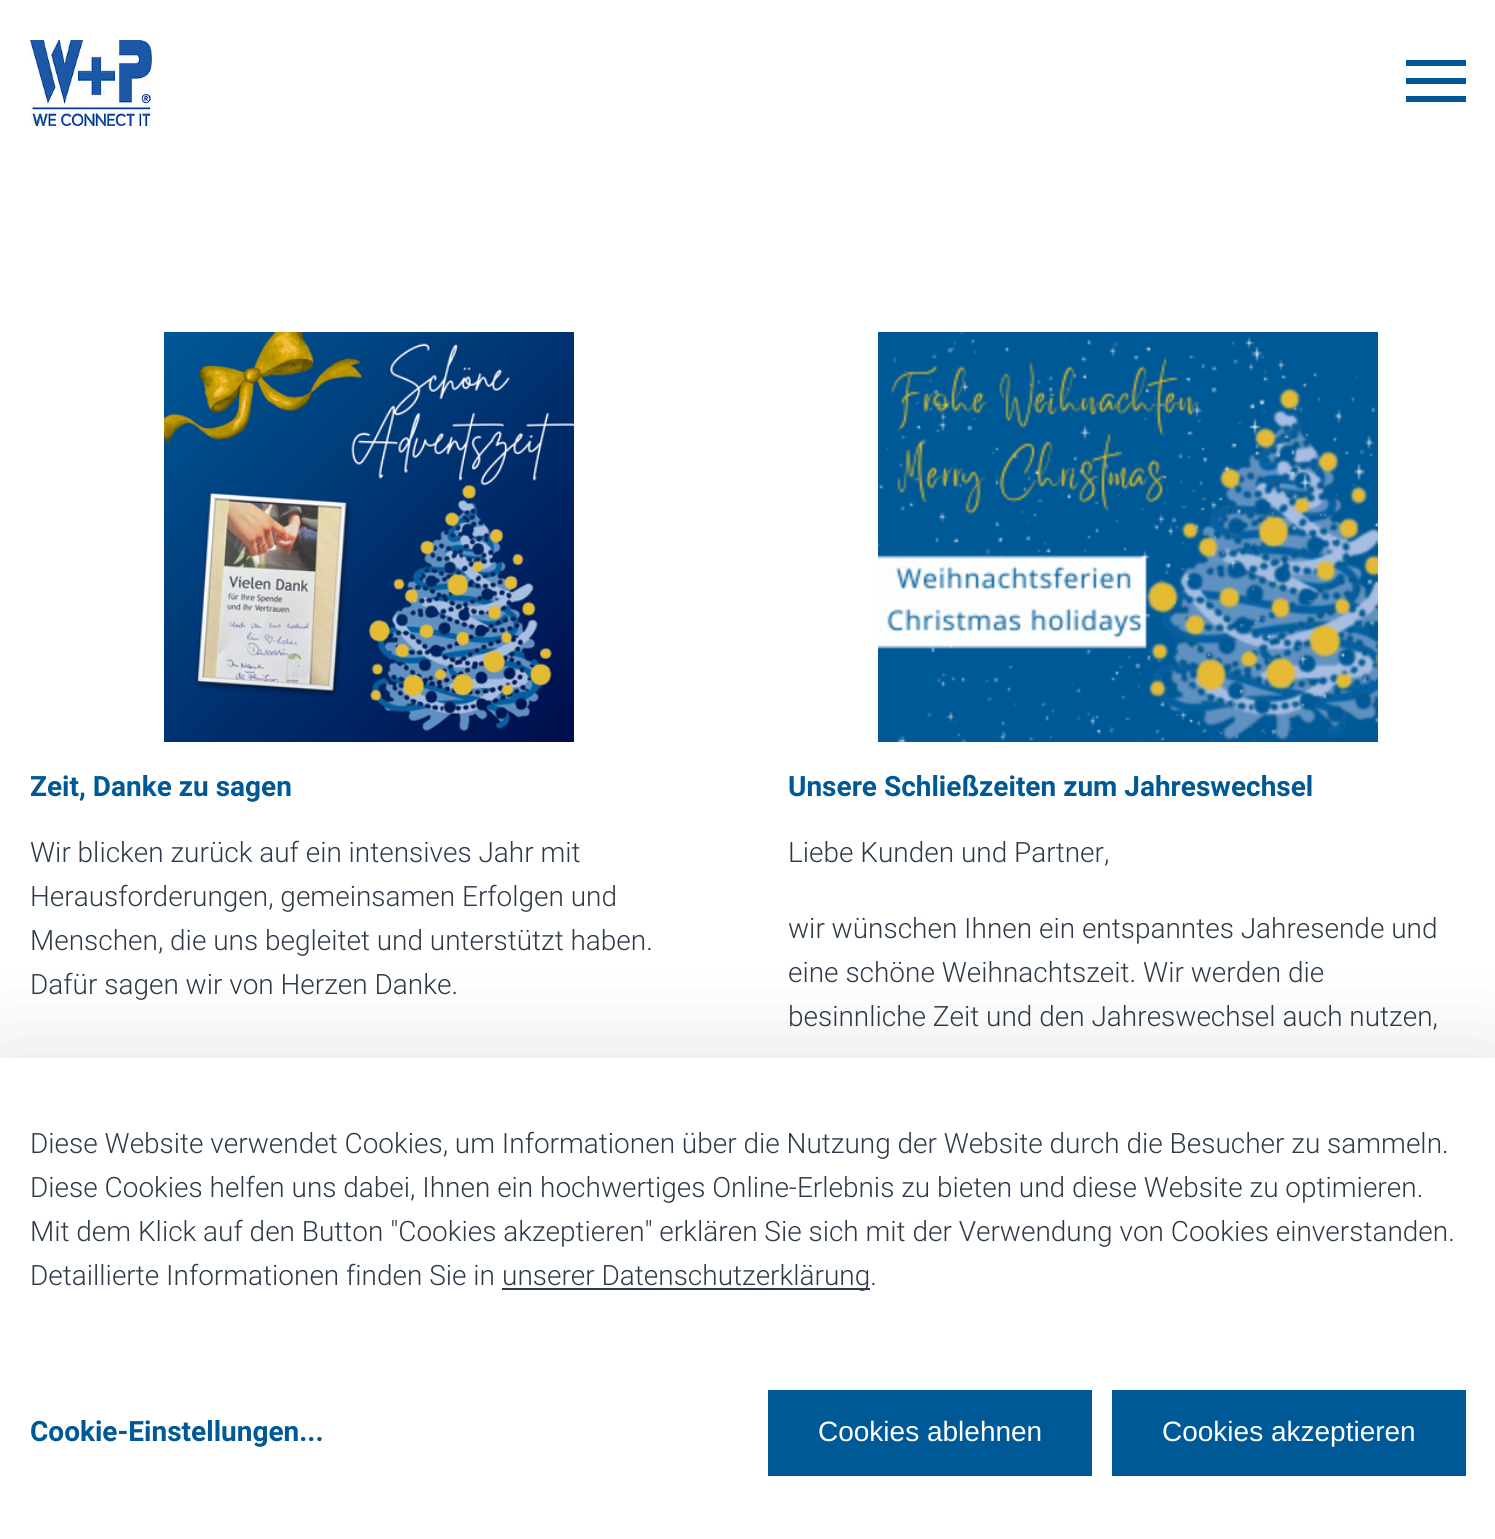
#include <cairo.h>
#include <math.h>
#include <stddef.h>


static void round_rect(cairo_t *cr, double x, double y, double w, double h, double r) {
    cairo_new_sub_path(cr);
    cairo_arc(cr, x + w - r, y + h - r, r, 0, M_PI / 2);
    cairo_arc(cr, x + r, y + h - r, r, M_PI / 2, M_PI);
    cairo_arc(cr, x + r, y + r, r, M_PI, 1.5 * M_PI);
    cairo_arc(cr, x + w - r, y + r, r, 1.5 * M_PI, 2 * M_PI);
    cairo_close_path(cr);
}

static void shadow(cairo_t *cr, double x, double y, double w, double h, double r, double blur, double alpha) {
    cairo_push_group_with_content(cr, CAIRO_CONTENT_ALPHA);
    cairo_set_operator(cr, CAIRO_OPERATOR_SOURCE);
    for (int i = 15; i >= -15 && fmin(w, h) + blur * i / 3 > 0; i -= 2) {
        double e = blur * i / 6;
        cairo_set_source_rgba(cr, 0, 0, 0, alpha * erfc((i - 1) / 8.5) / 2);
        round_rect(cr, x - e, y - e, w + 2 * e, h + 2 * e, fmax(0, fmin(r + e + blur * .6, fmin(w, h) / 2 + e)));
        cairo_fill(cr);
    }
    cairo_pattern_t *soft = cairo_pop_group(cr);
    cairo_mask(cr, soft);
    cairo_pattern_destroy(soft);
}

static void picture(cairo_t *cr, const char *path, double x, double y, double w, double h) {
    cairo_surface_t *image = cairo_image_surface_create_from_png(path);
    cairo_save(cr);
    cairo_set_source_surface(cr, image, x, y);
    cairo_rectangle(cr, x, y, w, h);
    cairo_fill(cr);
    cairo_restore(cr);
    cairo_surface_destroy(image);
}

int main(void) {
    cairo_surface_t *surface = cairo_image_surface_create(CAIRO_FORMAT_RGB24, 1495, 1539);
    cairo_t *cr = cairo_create(surface);
    cairo_font_options_t *options = cairo_font_options_create();
    cairo_font_options_set_hint_metrics(options, CAIRO_HINT_METRICS_OFF);
    cairo_font_options_set_hint_style(options, CAIRO_HINT_STYLE_NONE);
    cairo_set_font_options(cr, options);
    cairo_set_miter_limit(cr, 4);
    cairo_set_source_rgb(cr, 1, 1, 1);
    cairo_paint(cr);
    picture(cr, "img1.png", 30, 40, 122, 86);
    cairo_set_source_rgb(cr, 0, 0.349, 0.592);
    cairo_rectangle(cr, 1406, 60, 60, 6);
    cairo_fill(cr);
    cairo_rectangle(cr, 1406, 78, 60, 6);
    cairo_fill(cr);
    cairo_rectangle(cr, 1406, 96, 60, 6);
    cairo_fill(cr);
    picture(cr, "img2.png", 164, 332, 410, 410);
    cairo_select_font_face(cr, "Roboto", CAIRO_FONT_SLANT_NORMAL, CAIRO_FONT_WEIGHT_BOLD);
    cairo_set_font_size(cr, 28);
    cairo_move_to(cr, 30, 796);
    cairo_show_text(cr, "Zeit, Danke zu sagen");
    cairo_select_font_face(cr, "Roboto Light", CAIRO_FONT_SLANT_NORMAL, CAIRO_FONT_WEIGHT_NORMAL);
    cairo_set_source_rgb(cr, 0.176, 0.224, 0.282);
    cairo_move_to(cr, 30, 862);
    cairo_show_text(cr, "Wir blicken zurück auf ein intensives Jahr mit");
    cairo_move_to(cr, 30, 906);
    cairo_show_text(cr, "Herausforderungen, gemeinsamen Erfolgen und");
    cairo_move_to(cr, 30, 950);
    cairo_show_text(cr, "Menschen, die uns begleitet und unterstützt haben.");
    cairo_move_to(cr, 30, 994);
    cairo_show_text(cr, "Dafür sagen wir von Herzen Danke.");
    picture(cr, "img3.png", 878, 332, 500, 410);
    cairo_select_font_face(cr, "Roboto", CAIRO_FONT_SLANT_NORMAL, CAIRO_FONT_WEIGHT_BOLD);
    cairo_set_source_rgb(cr, 0, 0.349, 0.592);
    cairo_move_to(cr, 788, 796);
    cairo_show_text(cr, "Unsere Schließzeiten zum Jahreswechsel");
    cairo_select_font_face(cr, "Roboto Light", CAIRO_FONT_SLANT_NORMAL, CAIRO_FONT_WEIGHT_NORMAL);
    cairo_set_source_rgb(cr, 0.176, 0.224, 0.282);
    cairo_move_to(cr, 788, 862);
    cairo_show_text(cr, "Liebe Kunden und Partner,");
    cairo_move_to(cr, 788, 938);
    cairo_show_text(cr, "wir wünschen Ihnen ein entspanntes Jahresende und");
    cairo_move_to(cr, 788, 982);
    cairo_show_text(cr, "eine schöne Weihnachtszeit. Wir werden die");
    cairo_move_to(cr, 788, 1026);
    cairo_show_text(cr, "besinnliche Zeit und den Jahreswechsel auch nutzen,");
    cairo_set_source_rgb(cr, 0, 0, 0);
    shadow(cr, 0, 1062, 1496, 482, 0, 50, 0.13);
    cairo_set_source_rgb(cr, 1, 1, 1);
    cairo_rectangle(cr, 0, 1058, 1495, 481);
    cairo_fill(cr);
    cairo_set_source_rgb(cr, 0.176, 0.224, 0.282);
    cairo_move_to(cr, 30, 1153);
    cairo_show_text(cr, "Diese Website verwendet Cookies, um Informationen über die Nutzung der Website durch die Besucher zu sammeln.");
    cairo_move_to(cr, 30, 1197);
    cairo_show_text(cr, "Diese Cookies helfen uns dabei, Ihnen ein hochwertiges Online-Erlebnis zu bieten und diese Website zu optimieren.");
    cairo_move_to(cr, 30, 1241);
    cairo_show_text(cr, "Mit dem Klick auf den Button \"Cookies akzeptieren\" erklären Sie sich mit der Verwendung von Cookies einverstanden.");
    cairo_move_to(cr, 30, 1285);
    cairo_show_text(cr, "Detaillierte Informationen finden Sie in");
    cairo_rectangle(cr, 502, 1288, 368, 2);
    cairo_fill(cr);
    cairo_move_to(cr, 502, 1285);
    cairo_show_text(cr, "unserer Datenschutzerklärung.");
    cairo_select_font_face(cr, "Roboto", CAIRO_FONT_SLANT_NORMAL, CAIRO_FONT_WEIGHT_BOLD);
    cairo_set_source_rgb(cr, 0, 0.349, 0.592);
    cairo_move_to(cr, 30, 1441);
    cairo_show_text(cr, "Cookie-Einstellungen...");
    cairo_rectangle(cr, 768, 1390, 324, 86);
    cairo_fill(cr);
    cairo_select_font_face(cr, "Liberation Sans", CAIRO_FONT_SLANT_NORMAL, CAIRO_FONT_WEIGHT_NORMAL);
    cairo_set_source_rgb(cr, 1, 1, 1);
    cairo_move_to(cr, 818, 1441);
    cairo_show_text(cr, "Cookies ablehnen");
    cairo_set_source_rgb(cr, 0, 0.349, 0.592);
    cairo_rectangle(cr, 1112, 1390, 354, 86);
    cairo_fill(cr);
    cairo_set_source_rgb(cr, 1, 1, 1);
    cairo_move_to(cr, 1162, 1441);
    cairo_show_text(cr, "Cookies akzeptieren");
    cairo_surface_write_to_png(surface, "page.png");
    cairo_font_options_destroy(options);
    cairo_destroy(cr);
    cairo_surface_destroy(surface);
    return 0;
}
